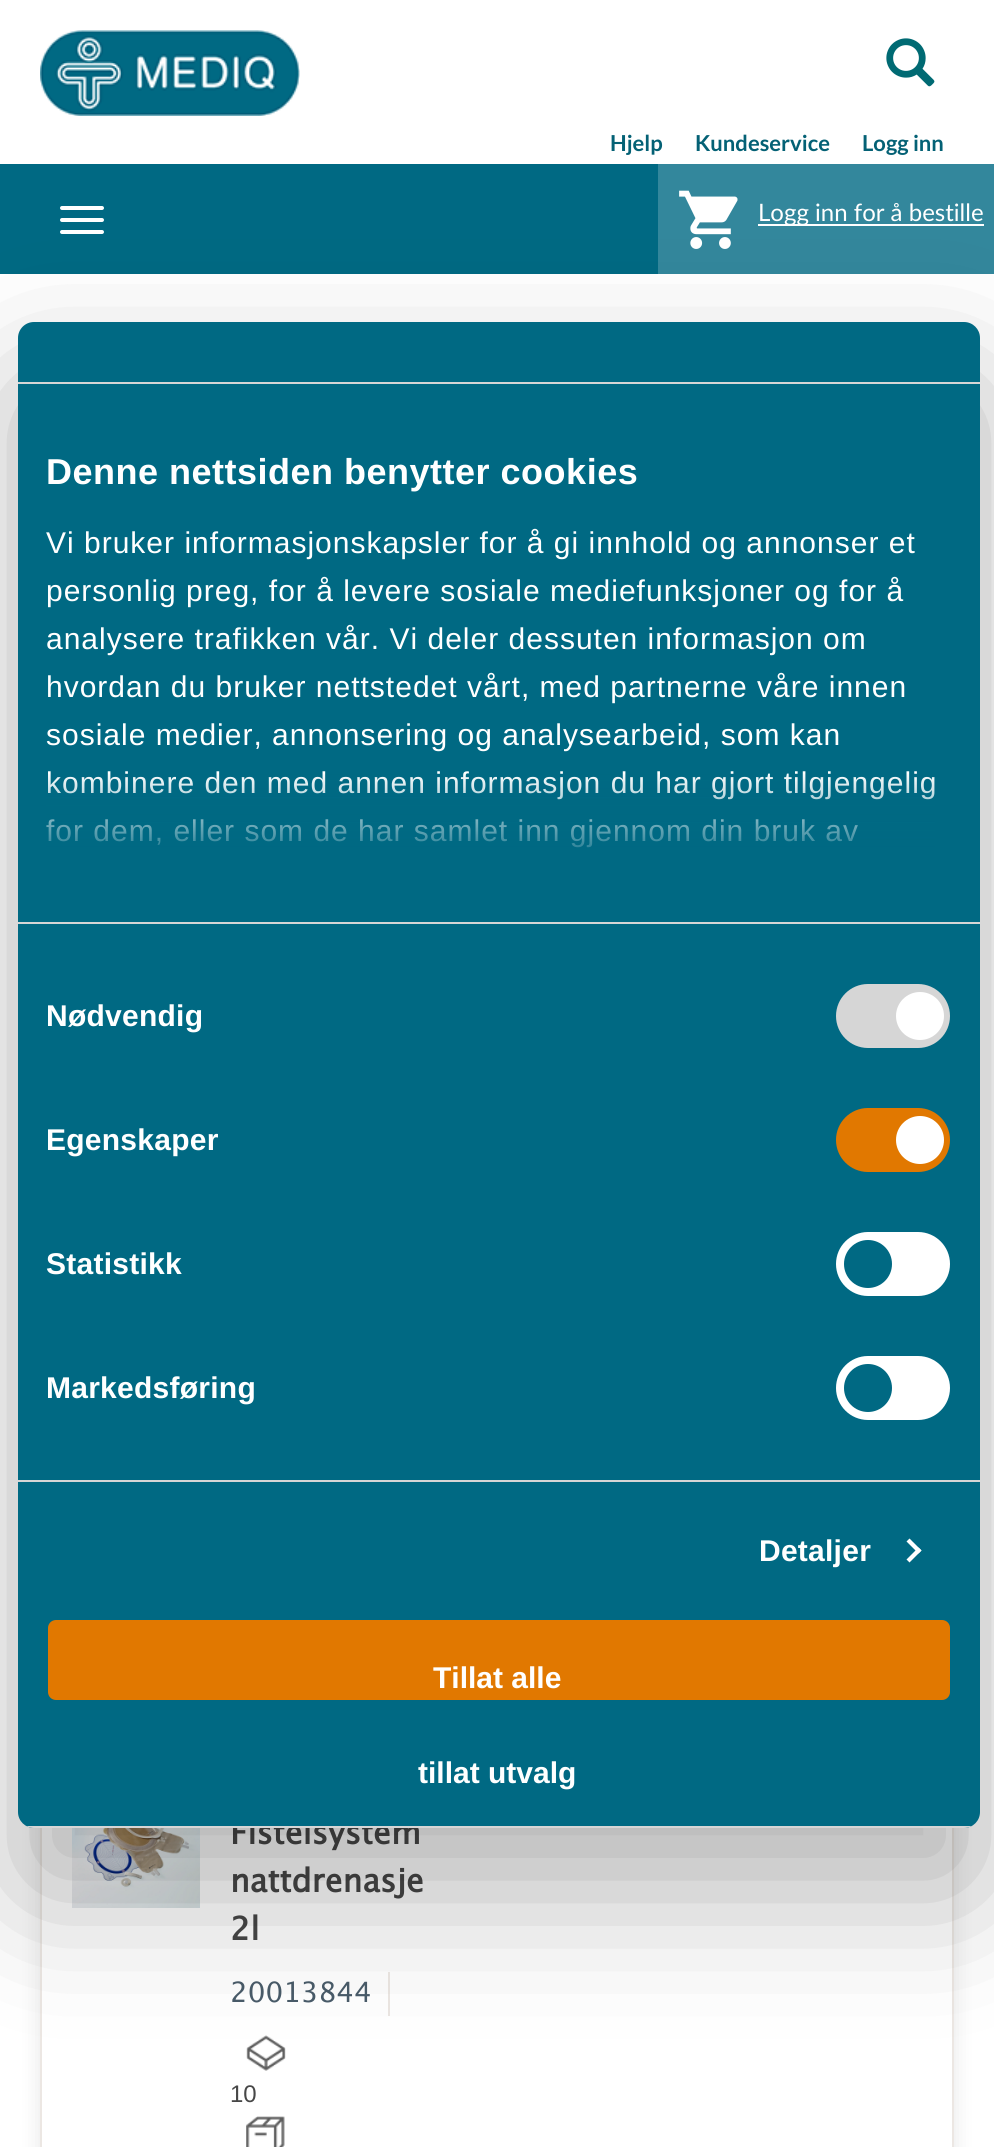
#include <cairo.h>
#include <math.h>
#include <stddef.h>


static void spaced_text(cairo_t *cr, double x, double y, const char *s, double letter, double word) {
    cairo_move_to(cr, x, y);
    while (*s) {
        char ch[5] = {0};
        int n = 0;
        do ch[n++] = *s++; while ((*s & 0xC0) == 0x80);
        cairo_show_text(cr, ch);
        cairo_rel_move_to(cr, letter + word * (*ch == ' '), 0);
    }
}

static void round_rect(cairo_t *cr, double x, double y, double w, double h, double r) {
    cairo_new_sub_path(cr);
    cairo_arc(cr, x + w - r, y + h - r, r, 0, M_PI / 2);
    cairo_arc(cr, x + r, y + h - r, r, M_PI / 2, M_PI);
    cairo_arc(cr, x + r, y + r, r, M_PI, 1.5 * M_PI);
    cairo_arc(cr, x + w - r, y + r, r, 1.5 * M_PI, 2 * M_PI);
    cairo_close_path(cr);
}

static void shadow(cairo_t *cr, double x, double y, double w, double h, double r, double blur, double alpha) {
    cairo_push_group_with_content(cr, CAIRO_CONTENT_ALPHA);
    cairo_set_operator(cr, CAIRO_OPERATOR_SOURCE);
    for (int i = 15; i >= -15 && fmin(w, h) + blur * i / 3 > 0; i -= 2) {
        double e = blur * i / 6;
        cairo_set_source_rgba(cr, 0, 0, 0, alpha * erfc((i - 1) / 8.5) / 2);
        round_rect(cr, x - e, y - e, w + 2 * e, h + 2 * e, fmax(0, fmin(r + e + blur * .6, fmin(w, h) / 2 + e)));
        cairo_fill(cr);
    }
    cairo_pattern_t *soft = cairo_pop_group(cr);
    cairo_mask(cr, soft);
    cairo_pattern_destroy(soft);
}

static void picture(cairo_t *cr, const char *path, double x, double y, double w, double h) {
    cairo_surface_t *image = cairo_image_surface_create_from_png(path);
    cairo_save(cr);
    cairo_set_source_surface(cr, image, x, y);
    cairo_rectangle(cr, x, y, w, h);
    cairo_fill(cr);
    cairo_restore(cr);
    cairo_surface_destroy(image);
}

int main(void) {
    cairo_surface_t *surface = cairo_image_surface_create(CAIRO_FORMAT_RGB24, 994, 2147);
    cairo_t *cr = cairo_create(surface);
    cairo_font_options_t *options = cairo_font_options_create();
    cairo_font_options_set_hint_metrics(options, CAIRO_HINT_METRICS_OFF);
    cairo_font_options_set_hint_style(options, CAIRO_HINT_STYLE_NONE);
    cairo_set_font_options(cr, options);
    cairo_set_miter_limit(cr, 4);
    cairo_pattern_t *gradient;
    cairo_set_source_rgb(cr, 1, 1, 1);
    cairo_paint(cr);
    picture(cr, "img1.png", 40, 30, 260, 86);
    picture(cr, "img2.png", 886, 38, 49, 49);
    cairo_select_font_face(cr, "Lato", CAIRO_FONT_SLANT_NORMAL, CAIRO_FONT_WEIGHT_BOLD);
    cairo_set_font_size(cr, 22);
    cairo_set_source_rgb(cr, 0.016, 0.38, 0.459);
    cairo_move_to(cr, 610, 151);
    cairo_show_text(cr, "Hjelp");
    cairo_move_to(cr, 695, 151);
    cairo_show_text(cr, "Kundeservice");
    cairo_move_to(cr, 862, 151);
    cairo_show_text(cr, "Logg inn");
    cairo_set_source_rgb(cr, 0, 0.412, 0.514);
    cairo_rectangle(cr, 0, 164, 658, 110);
    cairo_fill(cr);
    cairo_set_source_rgb(cr, 1, 1, 1);
    round_rect(cr, 60, 206, 44, 4, 2);
    cairo_fill(cr);
    round_rect(cr, 60, 218, 44, 4, 2);
    cairo_fill(cr);
    round_rect(cr, 60, 230, 44, 4, 2);
    cairo_fill(cr);
    cairo_set_source_rgb(cr, 0.2, 0.529, 0.612);
    cairo_rectangle(cr, 658, 164, 336, 110);
    cairo_fill(cr);
    picture(cr, "img3.png", 679, 190, 59, 59);
    cairo_set_source_rgb(cr, 1, 1, 1);
    cairo_rectangle(cr, 758, 224, 226, 2);
    cairo_fill(cr);
    cairo_select_font_face(cr, "Lato", CAIRO_FONT_SLANT_NORMAL, CAIRO_FONT_WEIGHT_NORMAL);
    cairo_set_font_size(cr, 24);
    cairo_move_to(cr, 758, 221);
    cairo_show_text(cr, "Logg inn for å bestille");
    cairo_set_source_rgb(cr, 0, 0, 0);
    shadow(cr, 40, 1688, 914, 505, 16, 10, 0.1);
    cairo_set_source_rgb(cr, 1, 1, 1);
    cairo_rectangle(cr, 42, 1828, 910, 319);
    cairo_fill(cr);
    cairo_rectangle(cr, 41, 1685, 912, 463);
    cairo_set_source_rgb(cr, 0.925, 0.906, 0.89);
    cairo_stroke(cr);
    picture(cr, "img4.png", 72, 1828, 128, 80);
    cairo_select_font_face(cr, "Lucida Grande", CAIRO_FONT_SLANT_NORMAL, CAIRO_FONT_WEIGHT_BOLD);
    cairo_set_font_size(cr, 32);
    cairo_set_source_rgb(cr, 0.278, 0.278, 0.278);
    cairo_move_to(cr, 230, 1844);
    cairo_show_text(cr, "Fistelsystem");
    cairo_move_to(cr, 230, 1892);
    cairo_show_text(cr, "nattdrenasje");
    cairo_move_to(cr, 230, 1940);
    cairo_show_text(cr, "2l");
    cairo_set_source_rgb(cr, 0.925, 0.906, 0.89);
    cairo_rectangle(cr, 388, 1972, 2, 44);
    cairo_fill(cr);
    cairo_select_font_face(cr, "Lucida Grande", CAIRO_FONT_SLANT_NORMAL, CAIRO_FONT_WEIGHT_NORMAL);
    cairo_set_font_size(cr, 28);
    cairo_set_source_rgb(cr, 0.286, 0.357, 0.412);
    cairo_move_to(cr, 230, 2002);
    cairo_show_text(cr, "20013844");
    picture(cr, "img5.png", 246, 2035, 40, 36);
    cairo_select_font_face(cr, "Liberation Sans", CAIRO_FONT_SLANT_NORMAL, CAIRO_FONT_WEIGHT_NORMAL);
    cairo_set_font_size(cr, 24);
    cairo_set_source_rgb(cr, 0.278, 0.278, 0.278);
    cairo_move_to(cr, 230, 2102);
    cairo_show_text(cr, "10");
    picture(cr, "img6.png", 246, 2116, 39, 31);
    cairo_set_source_rgb(cr, 0, 0, 0);
    shadow(cr, 18, 386, 962, 1506, 16, 68, 0.3);
    cairo_set_source_rgb(cr, 0, 0.412, 0.514);
    round_rect(cr, 18, 322, 962, 1506, 16);
    cairo_fill(cr);
    cairo_set_source_rgb(cr, 0.839, 0.839, 0.839);
    cairo_rectangle(cr, 18, 382, 962, 2);
    cairo_fill(cr);
    cairo_rectangle(cr, 18, 922, 962, 2);
    cairo_fill(cr);
    cairo_select_font_face(cr, "Liberation Sans", CAIRO_FONT_SLANT_NORMAL, CAIRO_FONT_WEIGHT_BOLD);
    cairo_set_font_size(cr, 36);
    cairo_set_source_rgb(cr, 1, 1, 1);
    spaced_text(cr, 46, 484, "Denne nettsiden benytter cookies", 0.5, 0);
    cairo_select_font_face(cr, "Liberation Sans", CAIRO_FONT_SLANT_NORMAL, CAIRO_FONT_WEIGHT_NORMAL);
    cairo_set_font_size(cr, 30);
    spaced_text(cr, 46, 553, "Vi bruker informasjonskapsler for å gi innhold og annonser et", 1, 0);
    spaced_text(cr, 46, 601, "personlig preg, for å levere sosiale mediefunksjoner og for å", 1, 0);
    spaced_text(cr, 46, 649, "analysere trafikken vår. Vi deler dessuten informasjon om", 1, 0);
    spaced_text(cr, 46, 697, "hvordan du bruker nettstedet vårt, med partnerne våre innen", 1, 0);
    spaced_text(cr, 46, 745, "sosiale medier, annonsering og analysearbeid, som kan", 1, 0);
    spaced_text(cr, 46, 793, "kombinere den med annen informasjon du har gjort tilgjengelig", 1, 0);
    spaced_text(cr, 46, 841, "for dem, eller som de har samlet inn gjennom din bruk av", 1, 0);
    gradient = cairo_pattern_create_linear(485, 922, 485, 772);
    cairo_pattern_add_color_stop_rgba(gradient, 0, 0, 0.412, 0.514, 1);
    cairo_pattern_add_color_stop_rgba(gradient, 0.5, 0, 0.412, 0.514, 0.8);
    cairo_pattern_add_color_stop_rgba(gradient, 1, 0, 0.412, 0.514, 0);
    cairo_set_source(cr, gradient);
    cairo_pattern_destroy(gradient);
    cairo_rectangle(cr, 46, 774, 889, 74);
    cairo_fill(cr);
    cairo_set_source_rgb(cr, 0.839, 0.839, 0.839);
    cairo_rectangle(cr, 18, 1480, 962, 2);
    cairo_fill(cr);
    cairo_select_font_face(cr, "Liberation Sans", CAIRO_FONT_SLANT_NORMAL, CAIRO_FONT_WEIGHT_BOLD);
    cairo_set_source_rgb(cr, 1, 1, 1);
    spaced_text(cr, 46, 1026, "Nødvendig", 0.25, 0);
    cairo_set_source_rgb(cr, 0.839, 0.839, 0.839);
    round_rect(cr, 836, 984, 114, 64, 32);
    cairo_fill(cr);
    cairo_set_source_rgb(cr, 1, 1, 1);
    cairo_arc(cr, 920, 1016, 24, 0, 2 * M_PI);
    cairo_fill(cr);
    spaced_text(cr, 46, 1150, "Egenskaper", 0.25, 0);
    cairo_set_source_rgb(cr, 0.882, 0.471, 0);
    round_rect(cr, 836, 1108, 114, 64, 32);
    cairo_fill(cr);
    cairo_set_source_rgb(cr, 1, 1, 1);
    cairo_arc(cr, 920, 1140, 24, 0, 2 * M_PI);
    cairo_fill(cr);
    spaced_text(cr, 46, 1274, "Statistikk", 0.25, 0);
    round_rect(cr, 836, 1232, 114, 64, 32);
    cairo_fill(cr);
    cairo_set_source_rgb(cr, 0, 0.412, 0.514);
    cairo_arc(cr, 868, 1264, 24, 0, 2 * M_PI);
    cairo_fill(cr);
    cairo_set_source_rgb(cr, 1, 1, 1);
    spaced_text(cr, 46, 1398, "Markedsføring", 0.25, 0);
    round_rect(cr, 836, 1356, 114, 64, 32);
    cairo_fill(cr);
    cairo_set_source_rgb(cr, 0, 0.412, 0.514);
    cairo_arc(cr, 868, 1388, 24, 0, 2 * M_PI);
    cairo_fill(cr);
    cairo_set_source_rgb(cr, 1, 1, 1);
    spaced_text(cr, 759, 1561, "Detaljer", 0.25, 0);
    cairo_new_path(cr);
    cairo_move_to(cr, 909.5, 1538.5);
    cairo_line_to(cr, 921.5, 1550.5);
    cairo_line_to(cr, 918.5, 1553.5);
    cairo_line_to(cr, 906.5, 1541.5);
    cairo_close_path(cr);
    cairo_fill(cr);
    cairo_new_path(cr);
    cairo_move_to(cr, 918.5, 1547.5);
    cairo_line_to(cr, 921.5, 1550.5);
    cairo_line_to(cr, 909.5, 1562.5);
    cairo_line_to(cr, 906.5, 1559.5);
    cairo_close_path(cr);
    cairo_fill(cr);
    cairo_save(cr);
    round_rect(cr, 18, 322, 962, 1506, 16);
    cairo_clip(cr);
    cairo_set_source_rgb(cr, 0.839, 0.839, 0.839);
    cairo_rectangle(cr, 18, 1826, 962, 2);
    cairo_fill(cr);
    cairo_restore(cr);
    cairo_set_source_rgb(cr, 0.882, 0.471, 0);
    round_rect(cr, 50, 1622, 898, 76, 6);
    cairo_fill_preserve(cr);
    cairo_set_line_width(cr, 4);
    cairo_stroke(cr);
    cairo_set_source_rgb(cr, 1, 1, 1);
    cairo_move_to(cr, 433, 1688);
    cairo_show_text(cr, "Tillat alle");
    cairo_move_to(cr, 418, 1783);
    cairo_show_text(cr, "tillat utvalg");
    cairo_surface_write_to_png(surface, "page.png");
    cairo_font_options_destroy(options);
    cairo_destroy(cr);
    cairo_surface_destroy(surface);
    return 0;
}
